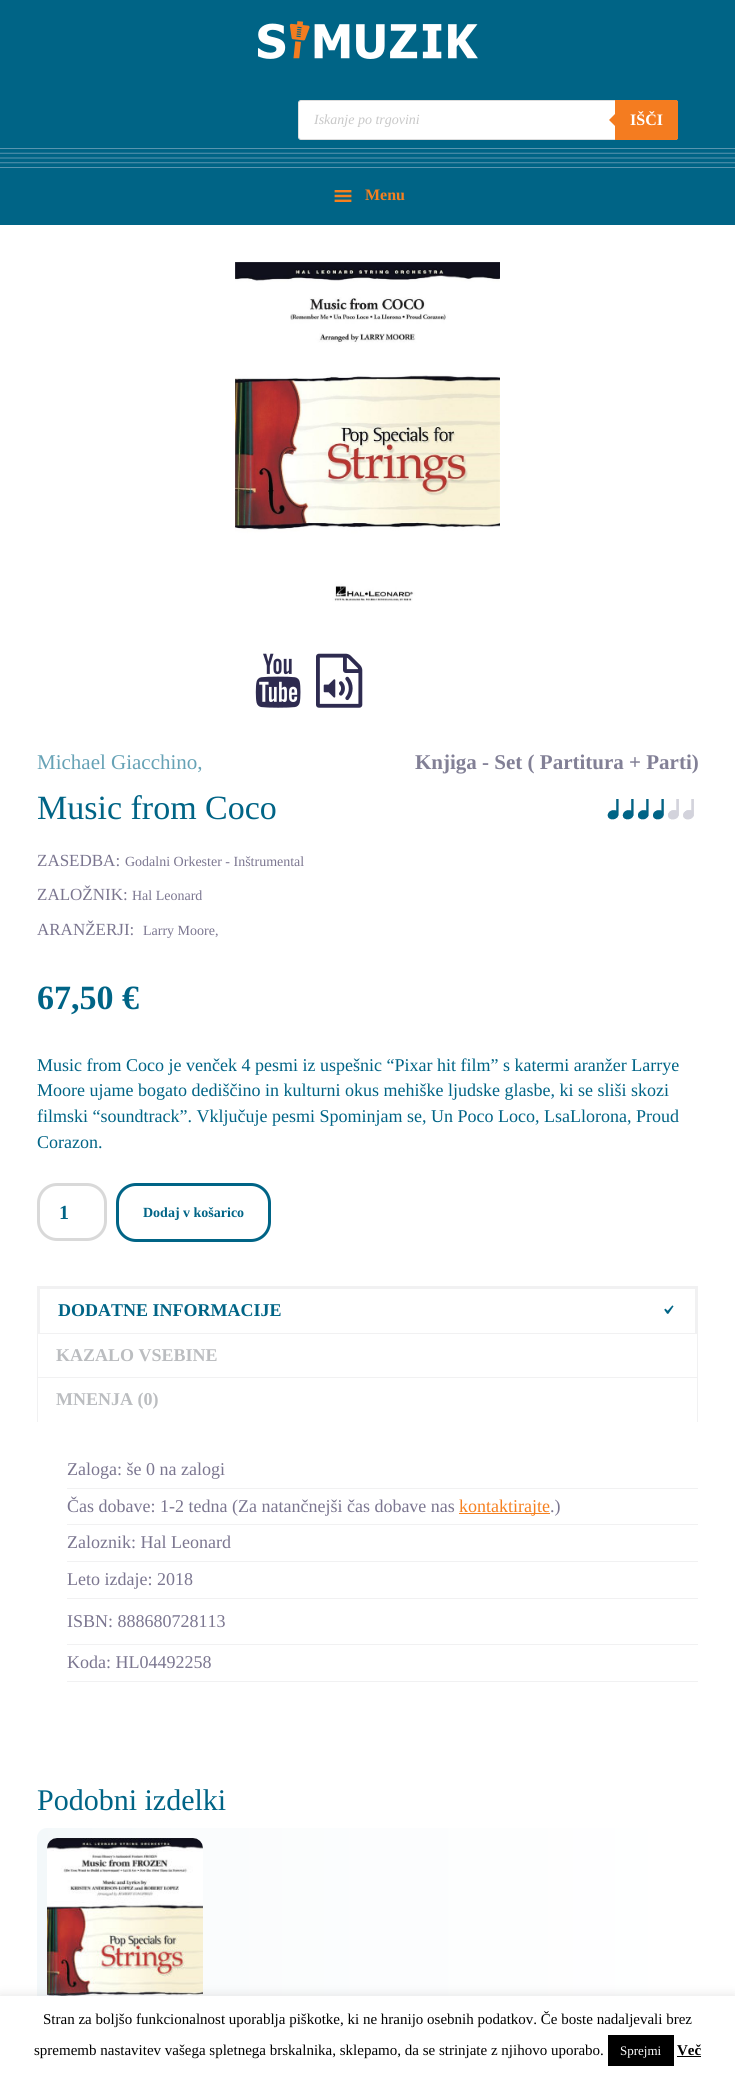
#include <cairo.h>
#include <math.h>
#include <stddef.h>


static void round_rect(cairo_t *cr, double x, double y, double w, double h, double r) {
    cairo_new_sub_path(cr);
    cairo_arc(cr, x + w - r, y + h - r, r, 0, M_PI / 2);
    cairo_arc(cr, x + r, y + h - r, r, M_PI / 2, M_PI);
    cairo_arc(cr, x + r, y + r, r, M_PI, 1.5 * M_PI);
    cairo_arc(cr, x + w - r, y + r, r, 1.5 * M_PI, 2 * M_PI);
    cairo_close_path(cr);
}

static void shadow(cairo_t *cr, double x, double y, double w, double h, double r, double blur, double alpha) {
    cairo_push_group_with_content(cr, CAIRO_CONTENT_ALPHA);
    cairo_set_operator(cr, CAIRO_OPERATOR_SOURCE);
    for (int i = 15; i >= -15 && fmin(w, h) + blur * i / 3 > 0; i -= 2) {
        double e = blur * i / 6;
        cairo_set_source_rgba(cr, 0, 0, 0, alpha * erfc((i - 1) / 8.5) / 2);
        round_rect(cr, x - e, y - e, w + 2 * e, h + 2 * e, fmax(0, fmin(r + e + blur * .6, fmin(w, h) / 2 + e)));
        cairo_fill(cr);
    }
    cairo_pattern_t *soft = cairo_pop_group(cr);
    cairo_mask(cr, soft);
    cairo_pattern_destroy(soft);
}

static void picture(cairo_t *cr, const char *path, double x, double y, double w, double h) {
    cairo_surface_t *image = cairo_image_surface_create_from_png(path);
    cairo_save(cr);
    cairo_set_source_surface(cr, image, x, y);
    cairo_rectangle(cr, x, y, w, h);
    cairo_fill(cr);
    cairo_restore(cr);
    cairo_surface_destroy(image);
}

int main(void) {
    cairo_surface_t *surface = cairo_image_surface_create(CAIRO_FORMAT_RGB24, 735, 2078);
    cairo_t *cr = cairo_create(surface);
    cairo_font_options_t *options = cairo_font_options_create();
    cairo_font_options_set_hint_metrics(options, CAIRO_HINT_METRICS_OFF);
    cairo_font_options_set_hint_style(options, CAIRO_HINT_STYLE_NONE);
    cairo_set_font_options(cr, options);
    cairo_set_miter_limit(cr, 4);
    cairo_pattern_t *gradient;
    cairo_set_source_rgb(cr, 0, 0.392, 0.525);
    cairo_paint(cr);
    picture(cr, "img1.png", 258, 21, 220, 38);
    cairo_set_source_rgb(cr, 1, 1, 1);
    round_rect(cr, 298.5, 100.5, 379, 39, 2.5);
    cairo_fill_preserve(cr);
    cairo_set_source_rgb(cr, 0.867, 0.867, 0.867);
    cairo_set_line_width(cr, 1);
    cairo_stroke(cr);
    cairo_select_font_face(cr, "Liberation Serif", CAIRO_FONT_SLANT_ITALIC, CAIRO_FONT_WEIGHT_NORMAL);
    cairo_set_font_size(cr, 14);
    cairo_set_source_rgb(cr, 0.784, 0.784, 0.784);
    cairo_move_to(cr, 314, 124);
    cairo_show_text(cr, "Iskanje po trgovini");
    cairo_set_source_rgb(cr, 0.957, 0.486, 0.125);
    cairo_new_path(cr);
    cairo_move_to(cr, 615, 100);
    cairo_line_to(cr, 676, 100);
    cairo_curve_to(cr, 677, 100, 678, 101, 678, 102);
    cairo_line_to(cr, 678, 138);
    cairo_curve_to(cr, 678, 139, 677, 140, 676, 140);
    cairo_line_to(cr, 615, 140);
    cairo_close_path(cr);
    cairo_fill(cr);
    cairo_new_path(cr);
    cairo_move_to(cr, 617, 112);
    cairo_line_to(cr, 617, 128);
    cairo_line_to(cr, 609, 120);
    cairo_close_path(cr);
    cairo_fill(cr);
    cairo_select_font_face(cr, "Liberation Serif", CAIRO_FONT_SLANT_NORMAL, CAIRO_FONT_WEIGHT_BOLD);
    cairo_set_font_size(cr, 16);
    cairo_set_source_rgb(cr, 1, 1, 1);
    cairo_move_to(cr, 630, 125);
    cairo_show_text(cr, "IŠČI");
    picture(cr, "img2.png", 0, 148, 735, 20);
    picture(cr, "img3.png", 334, 190, 18, 12);
    cairo_set_source_rgb(cr, 0.961, 0.502, 0.122);
    cairo_move_to(cr, 365, 200);
    cairo_show_text(cr, "Menu");
    cairo_set_source_rgb(cr, 1, 1, 1);
    cairo_rectangle(cr, 0, 225, 735, 1771);
    cairo_fill(cr);
    picture(cr, "img4.png", 235, 262, 265, 340);
    picture(cr, "img5.png", 255, 653, 46, 55);
    picture(cr, "img6.png", 316, 653, 47, 55);
    cairo_select_font_face(cr, "Liberation Serif", CAIRO_FONT_SLANT_NORMAL, CAIRO_FONT_WEIGHT_NORMAL);
    cairo_set_font_size(cr, 21);
    cairo_set_source_rgb(cr, 0.4, 0.635, 0.714);
    cairo_move_to(cr, 37, 769);
    cairo_show_text(cr, "Michael Giacchino,");
    cairo_select_font_face(cr, "Liberation Serif", CAIRO_FONT_SLANT_NORMAL, CAIRO_FONT_WEIGHT_BOLD);
    cairo_set_source_rgb(cr, 0.51, 0.502, 0.588);
    cairo_move_to(cr, 415, 769);
    cairo_show_text(cr, "Knjiga - Set ( Partitura + Parti)");
    cairo_select_font_face(cr, "Liberation Serif", CAIRO_FONT_SLANT_NORMAL, CAIRO_FONT_WEIGHT_NORMAL);
    cairo_set_font_size(cr, 34);
    cairo_set_source_rgb(cr, 0, 0.392, 0.525);
    cairo_move_to(cr, 37, 819);
    cairo_show_text(cr, "Music from Coco");
    picture(cr, "img7.png", 607, 799, 87, 21);
    picture(cr, "img8.png", 607, 799, 87, 21);
    picture(cr, "img9.png", 607, 799, 57, 21);
    cairo_set_font_size(cr, 17);
    cairo_set_source_rgb(cr, 0.482, 0.463, 0.565);
    cairo_move_to(cr, 37, 866);
    cairo_show_text(cr, "ZASEDBA:");
    cairo_set_font_size(cr, 14);
    cairo_move_to(cr, 125, 866);
    cairo_show_text(cr, "Godalni Orkester - Inštrumental");
    cairo_set_font_size(cr, 17);
    cairo_move_to(cr, 37, 900);
    cairo_show_text(cr, "ZALOŽNIK:");
    cairo_set_font_size(cr, 14);
    cairo_move_to(cr, 132, 900);
    cairo_show_text(cr, "Hal Leonard");
    cairo_set_font_size(cr, 17);
    cairo_move_to(cr, 37, 935);
    cairo_show_text(cr, "ARANŽERJI:");
    cairo_set_font_size(cr, 14);
    cairo_move_to(cr, 143, 935);
    cairo_show_text(cr, "Larry Moore,");
    cairo_select_font_face(cr, "Liberation Serif", CAIRO_FONT_SLANT_NORMAL, CAIRO_FONT_WEIGHT_BOLD);
    cairo_set_font_size(cr, 34);
    cairo_set_source_rgb(cr, 0, 0.392, 0.525);
    cairo_move_to(cr, 37, 1009);
    cairo_show_text(cr, "67,50 €");
    cairo_select_font_face(cr, "Liberation Serif", CAIRO_FONT_SLANT_NORMAL, CAIRO_FONT_WEIGHT_NORMAL);
    cairo_set_font_size(cr, 18);
    cairo_move_to(cr, 37, 1071);
    cairo_show_text(cr, "Music from Coco je venček 4 pesmi iz uspešnic “Pixar hit film” s katermi aranžer Larrye");
    cairo_move_to(cr, 37, 1096);
    cairo_show_text(cr, "Moore ujame bogato dediščino in kulturni okus mehiške ljudske glasbe, ki se sliši skozi");
    cairo_move_to(cr, 37, 1122);
    cairo_show_text(cr, "filmski “soundtrack”. Vključuje pesmi Spominjam se, Un Poco Loco, LsaLlorona, Proud");
    cairo_move_to(cr, 37, 1148);
    cairo_show_text(cr, "Corazon.");
    round_rect(cr, 38.5, 1184.5, 67, 55, 18.5);
    cairo_set_source_rgb(cr, 0.851, 0.851, 0.851);
    cairo_set_line_width(cr, 3);
    cairo_stroke(cr);
    cairo_select_font_face(cr, "Liberation Serif", CAIRO_FONT_SLANT_NORMAL, CAIRO_FONT_WEIGHT_BOLD);
    cairo_set_font_size(cr, 20);
    cairo_set_source_rgb(cr, 0, 0.392, 0.525);
    cairo_move_to(cr, 59, 1219);
    cairo_show_text(cr, "1");
    round_rect(cr, 117.5, 1184.5, 152, 56, 18.5);
    cairo_stroke(cr);
    cairo_set_font_size(cr, 14);
    cairo_move_to(cr, 143, 1217);
    cairo_show_text(cr, "Dodaj v košarico");
    cairo_set_source_rgb(cr, 0.945, 0.945, 0.949);
    cairo_rectangle(cr, 37, 1286, 661, 3);
    cairo_fill(cr);
    cairo_rectangle(cr, 695, 1286, 3, 47);
    cairo_fill(cr);
    cairo_rectangle(cr, 37, 1286, 3, 47);
    cairo_fill(cr);
    cairo_set_font_size(cr, 18);
    cairo_set_source_rgb(cr, 0, 0.392, 0.525);
    cairo_move_to(cr, 58, 1316);
    cairo_show_text(cr, "DODATNE INFORMACIJE");
    picture(cr, "img10.png", 664, 1305, 10, 9);
    cairo_set_source_rgb(cr, 0.945, 0.945, 0.949);
    cairo_rectangle(cr, 37, 1333, 661, 1);
    cairo_fill(cr);
    cairo_rectangle(cr, 697, 1333, 1, 44);
    cairo_fill(cr);
    cairo_rectangle(cr, 37, 1333, 1, 44);
    cairo_fill(cr);
    cairo_set_source_rgb(cr, 0.733, 0.741, 0.753);
    cairo_move_to(cr, 56, 1361);
    cairo_show_text(cr, "KAZALO VSEBINE");
    cairo_set_source_rgb(cr, 0.945, 0.945, 0.949);
    cairo_rectangle(cr, 37, 1377, 661, 1);
    cairo_fill(cr);
    cairo_rectangle(cr, 697, 1377, 1, 46);
    cairo_fill(cr);
    cairo_rectangle(cr, 37, 1377, 1, 46);
    cairo_fill(cr);
    cairo_set_source_rgb(cr, 0.733, 0.741, 0.753);
    cairo_move_to(cr, 56, 1405);
    cairo_show_text(cr, "MNENJA (0)");
    cairo_set_source_rgb(cr, 1, 1, 1);
    cairo_rectangle(cr, 37, 1422, 661, 1);
    cairo_fill(cr);
    cairo_set_source_rgb(cr, 0.945, 0.945, 0.949);
    cairo_rectangle(cr, 67, 1488, 631, 1);
    cairo_fill(cr);
    cairo_select_font_face(cr, "Liberation Serif", CAIRO_FONT_SLANT_NORMAL, CAIRO_FONT_WEIGHT_NORMAL);
    cairo_set_source_rgb(cr, 0.482, 0.463, 0.565);
    cairo_move_to(cr, 67, 1475);
    cairo_show_text(cr, "Zaloga: še 0 na zalogi");
    cairo_set_source_rgb(cr, 0.945, 0.945, 0.949);
    cairo_rectangle(cr, 67, 1524, 631, 1);
    cairo_fill(cr);
    cairo_set_source_rgb(cr, 0.482, 0.463, 0.565);
    cairo_move_to(cr, 67, 1512);
    cairo_show_text(cr, "Čas dobave: 1-2 tedna (Za natančnejši čas dobave nas");
    cairo_set_source_rgb(cr, 0.961, 0.502, 0.122);
    cairo_rectangle(cr, 459, 1513, 91, 1);
    cairo_fill(cr);
    cairo_move_to(cr, 459, 1512);
    cairo_show_text(cr, "kontaktirajte");
    cairo_set_source_rgb(cr, 0.482, 0.463, 0.565);
    cairo_move_to(cr, 550, 1512);
    cairo_show_text(cr, ".)");
    cairo_set_source_rgb(cr, 0.945, 0.945, 0.949);
    cairo_rectangle(cr, 67, 1561, 631, 1);
    cairo_fill(cr);
    cairo_set_source_rgb(cr, 0.482, 0.463, 0.565);
    cairo_move_to(cr, 67, 1548);
    cairo_show_text(cr, "Zaloznik: Hal Leonard");
    cairo_set_source_rgb(cr, 0.945, 0.945, 0.949);
    cairo_rectangle(cr, 67, 1598, 631, 1);
    cairo_fill(cr);
    cairo_set_source_rgb(cr, 0.482, 0.463, 0.565);
    cairo_move_to(cr, 67, 1585);
    cairo_show_text(cr, "Leto izdaje: 2018");
    cairo_set_source_rgb(cr, 0.945, 0.945, 0.949);
    cairo_rectangle(cr, 67, 1644, 631, 1);
    cairo_fill(cr);
    cairo_set_source_rgb(cr, 0.482, 0.463, 0.565);
    cairo_move_to(cr, 67, 1627);
    cairo_show_text(cr, "ISBN: 888680728113");
    cairo_set_source_rgb(cr, 0.945, 0.945, 0.949);
    cairo_rectangle(cr, 67, 1681, 631, 1);
    cairo_fill(cr);
    cairo_set_source_rgb(cr, 0.482, 0.463, 0.565);
    cairo_move_to(cr, 67, 1668);
    cairo_show_text(cr, "Koda: HL04492258");
    cairo_set_font_size(cr, 30);
    cairo_set_source_rgb(cr, 0, 0.392, 0.525);
    cairo_move_to(cr, 37, 1810);
    cairo_show_text(cr, "Podobni izdelki");
    gradient = cairo_pattern_create_linear(37, 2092, 698, 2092);
    cairo_pattern_add_color_stop_rgba(gradient, 0, 0.953, 0.973, 0.98, 1);
    cairo_pattern_add_color_stop_rgba(gradient, 0.23, 0.98, 0.988, 0.992, 1);
    cairo_pattern_add_color_stop_rgba(gradient, 1, 1, 1, 1, 1);
    cairo_set_source(cr, gradient);
    cairo_pattern_destroy(gradient);
    round_rect(cr, 37, 1828, 661, 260, 10);
    cairo_fill(cr);
    picture(cr, "img11.png", 47, 1838, 156, 158);
    cairo_set_source_rgb(cr, 0.675, 0.671, 0.671);
    shadow(cr, 0, 1995, 735, 82, 0, 5, 0.3);
    cairo_set_source_rgb(cr, 1, 1, 1);
    cairo_rectangle(cr, 0, 1996, 735, 82);
    cairo_fill(cr);
    cairo_set_font_size(cr, 15);
    cairo_set_source_rgb(cr, 0, 0, 0);
    cairo_move_to(cr, 43, 2024);
    cairo_show_text(cr, "Stran za boljšo funkcionalnost uporablja piškotke, ki ne hranijo osebnih podatkov. Če boste nadaljevali brez");
    cairo_move_to(cr, 34, 2055);
    cairo_show_text(cr, "sprememb nastavitev vašega spletnega brskalnika, sklepamo, da se strinjate z njihovo uporabo.");
    cairo_rectangle(cr, 608, 2035, 66, 31);
    cairo_fill(cr);
    cairo_set_font_size(cr, 13);
    cairo_set_source_rgb(cr, 1, 1, 1);
    cairo_move_to(cr, 620, 2055);
    cairo_show_text(cr, "Sprejmi");
    cairo_select_font_face(cr, "Liberation Serif", CAIRO_FONT_SLANT_NORMAL, CAIRO_FONT_WEIGHT_BOLD);
    cairo_set_font_size(cr, 15);
    cairo_set_source_rgb(cr, 0, 0, 0);
    cairo_move_to(cr, 677, 2055);
    cairo_show_text(cr, "Več");
    cairo_rectangle(cr, 677, 2056, 24, 1);
    cairo_fill(cr);
    cairo_surface_write_to_png(surface, "page.png");
    cairo_font_options_destroy(options);
    cairo_destroy(cr);
    cairo_surface_destroy(surface);
    return 0;
}
